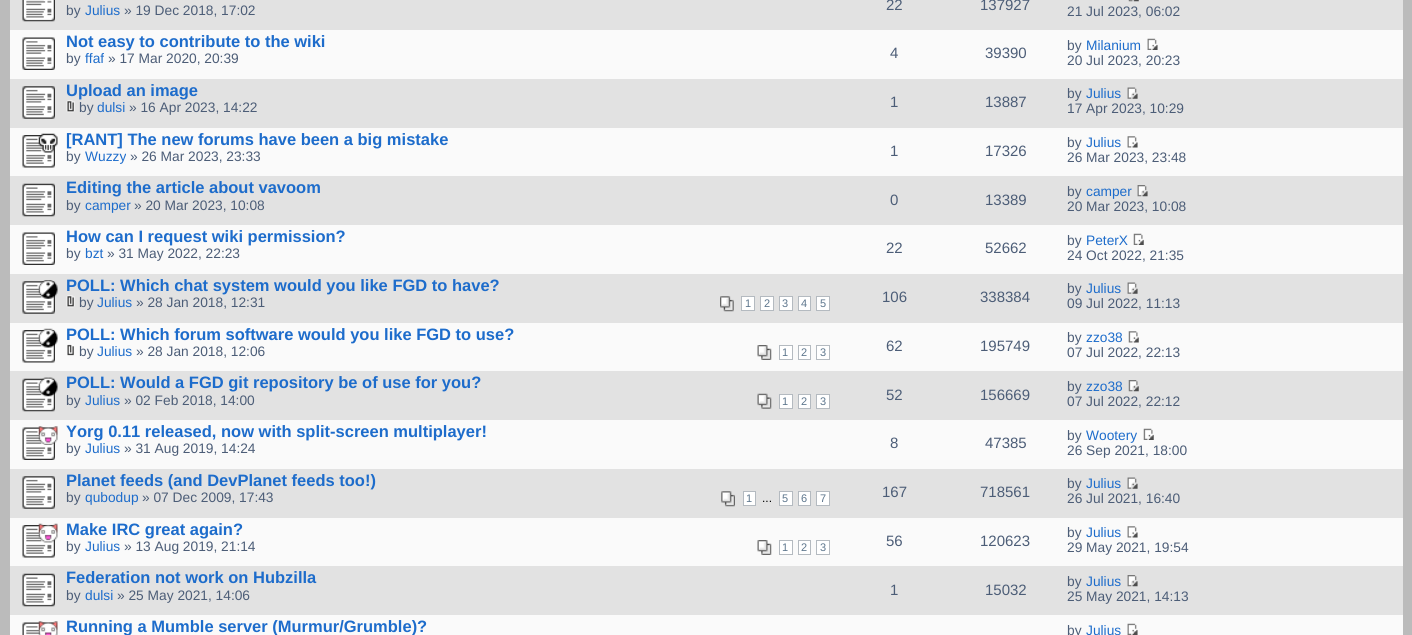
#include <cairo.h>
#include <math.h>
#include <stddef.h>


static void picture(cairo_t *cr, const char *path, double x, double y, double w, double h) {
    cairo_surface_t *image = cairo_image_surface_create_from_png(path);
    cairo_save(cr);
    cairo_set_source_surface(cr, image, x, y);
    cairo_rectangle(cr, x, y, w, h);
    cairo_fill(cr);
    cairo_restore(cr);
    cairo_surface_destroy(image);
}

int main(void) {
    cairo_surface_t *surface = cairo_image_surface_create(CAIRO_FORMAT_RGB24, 1412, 635);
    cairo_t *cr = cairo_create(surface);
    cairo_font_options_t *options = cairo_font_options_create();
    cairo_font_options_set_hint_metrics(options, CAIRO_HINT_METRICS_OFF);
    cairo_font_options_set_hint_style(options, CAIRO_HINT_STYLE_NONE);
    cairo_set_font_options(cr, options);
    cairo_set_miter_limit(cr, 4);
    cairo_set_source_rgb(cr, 0.733, 0.733, 0.733);
    cairo_paint(cr);
    cairo_set_source_rgb(cr, 0.886, 0.886, 0.886);
    cairo_rectangle(cr, 10, 0, 1393, 30);
    cairo_fill(cr);
    picture(cr, "img1.png", 22, 0, 33, 22);
    cairo_select_font_face(cr, "Liberation Sans", CAIRO_FONT_SLANT_NORMAL, CAIRO_FONT_WEIGHT_NORMAL);
    cairo_set_font_size(cr, 13.75);
    cairo_set_source_rgb(cr, 0.298, 0.365, 0.467);
    cairo_move_to(cr, 66, 15);
    cairo_show_text(cr, "by");
    cairo_set_source_rgb(cr, 0.114, 0.424, 0.796);
    cairo_move_to(cr, 85, 15);
    cairo_show_text(cr, "Julius");
    cairo_set_source_rgb(cr, 0.298, 0.365, 0.467);
    cairo_move_to(cr, 124, 15);
    cairo_show_text(cr, "» 19 Dec 2018, 17:02");
    cairo_set_font_size(cr, 15);
    cairo_move_to(cr, 886, 10);
    cairo_show_text(cr, "22");
    cairo_move_to(cr, 980, 10);
    cairo_show_text(cr, "137927");
    picture(cr, "img2.png", 1128, 0, 11, 2);
    cairo_set_font_size(cr, 13.75);
    cairo_move_to(cr, 1067, 16);
    cairo_show_text(cr, "21 Jul 2023, 06:02");
    cairo_set_source_rgb(cr, 0.98, 0.98, 0.98);
    cairo_rectangle(cr, 10, 30, 1393, 49);
    cairo_fill(cr);
    picture(cr, "img3.png", 22, 37, 33, 33);
    cairo_select_font_face(cr, "Liberation Sans", CAIRO_FONT_SLANT_NORMAL, CAIRO_FONT_WEIGHT_BOLD);
    cairo_set_font_size(cr, 16.5);
    cairo_set_source_rgb(cr, 0.114, 0.424, 0.796);
    cairo_move_to(cr, 66, 47);
    cairo_show_text(cr, "Not easy to contribute to the wiki");
    cairo_select_font_face(cr, "Liberation Sans", CAIRO_FONT_SLANT_NORMAL, CAIRO_FONT_WEIGHT_NORMAL);
    cairo_set_font_size(cr, 13.75);
    cairo_set_source_rgb(cr, 0.298, 0.365, 0.467);
    cairo_move_to(cr, 66, 63);
    cairo_show_text(cr, "by");
    cairo_set_source_rgb(cr, 0.114, 0.424, 0.796);
    cairo_move_to(cr, 85, 63);
    cairo_show_text(cr, "ffaf");
    cairo_set_source_rgb(cr, 0.298, 0.365, 0.467);
    cairo_move_to(cr, 108, 63);
    cairo_show_text(cr, "» 17 Mar 2020, 20:39");
    cairo_set_font_size(cr, 15);
    cairo_move_to(cr, 890, 58);
    cairo_show_text(cr, "4");
    cairo_move_to(cr, 985, 58);
    cairo_show_text(cr, "39390");
    cairo_set_font_size(cr, 13.75);
    cairo_move_to(cr, 1067, 50);
    cairo_show_text(cr, "by");
    cairo_set_source_rgb(cr, 0.114, 0.424, 0.796);
    cairo_move_to(cr, 1086, 50);
    cairo_show_text(cr, "Milanium");
    picture(cr, "img4.png", 1147, 38, 11, 12);
    cairo_set_source_rgb(cr, 0.298, 0.365, 0.467);
    cairo_move_to(cr, 1067, 65);
    cairo_show_text(cr, "20 Jul 2023, 20:23");
    cairo_set_source_rgb(cr, 0.886, 0.886, 0.886);
    cairo_rectangle(cr, 10, 79, 1393, 49);
    cairo_fill(cr);
    picture(cr, "img5.png", 22, 86, 33, 33);
    cairo_select_font_face(cr, "Liberation Sans", CAIRO_FONT_SLANT_NORMAL, CAIRO_FONT_WEIGHT_BOLD);
    cairo_set_font_size(cr, 16.5);
    cairo_set_source_rgb(cr, 0.114, 0.424, 0.796);
    cairo_move_to(cr, 66, 96);
    cairo_show_text(cr, "Upload an image");
    picture(cr, "img6.png", 66, 100, 9, 13);
    cairo_select_font_face(cr, "Liberation Sans", CAIRO_FONT_SLANT_NORMAL, CAIRO_FONT_WEIGHT_NORMAL);
    cairo_set_font_size(cr, 13.75);
    cairo_set_source_rgb(cr, 0.298, 0.365, 0.467);
    cairo_move_to(cr, 79, 112);
    cairo_show_text(cr, "by");
    cairo_set_source_rgb(cr, 0.114, 0.424, 0.796);
    cairo_move_to(cr, 97, 112);
    cairo_show_text(cr, "dulsi");
    cairo_set_source_rgb(cr, 0.298, 0.365, 0.467);
    cairo_move_to(cr, 129, 112);
    cairo_show_text(cr, "» 16 Apr 2023, 14:22");
    cairo_set_font_size(cr, 15);
    cairo_move_to(cr, 890, 107);
    cairo_show_text(cr, "1");
    cairo_move_to(cr, 985, 107);
    cairo_show_text(cr, "13887");
    cairo_set_font_size(cr, 13.75);
    cairo_move_to(cr, 1067, 98);
    cairo_show_text(cr, "by");
    cairo_set_source_rgb(cr, 0.114, 0.424, 0.796);
    cairo_move_to(cr, 1086, 98);
    cairo_show_text(cr, "Julius");
    picture(cr, "img7.png", 1127, 87, 11, 12);
    cairo_set_source_rgb(cr, 0.298, 0.365, 0.467);
    cairo_move_to(cr, 1067, 113);
    cairo_show_text(cr, "17 Apr 2023, 10:29");
    cairo_set_source_rgb(cr, 0.98, 0.98, 0.98);
    cairo_rectangle(cr, 10, 128, 1393, 48);
    cairo_fill(cr);
    picture(cr, "img8.png", 22, 135, 33, 33);
    picture(cr, "img9.png", 38, 133, 20, 20);
    cairo_select_font_face(cr, "Liberation Sans", CAIRO_FONT_SLANT_NORMAL, CAIRO_FONT_WEIGHT_BOLD);
    cairo_set_font_size(cr, 16.5);
    cairo_set_source_rgb(cr, 0.114, 0.424, 0.796);
    cairo_move_to(cr, 66, 145);
    cairo_show_text(cr, "[RANT] The new forums have been a big mistake");
    cairo_select_font_face(cr, "Liberation Sans", CAIRO_FONT_SLANT_NORMAL, CAIRO_FONT_WEIGHT_NORMAL);
    cairo_set_font_size(cr, 13.75);
    cairo_set_source_rgb(cr, 0.298, 0.365, 0.467);
    cairo_move_to(cr, 66, 161);
    cairo_show_text(cr, "by");
    cairo_set_source_rgb(cr, 0.114, 0.424, 0.796);
    cairo_move_to(cr, 85, 161);
    cairo_show_text(cr, "Wuzzy");
    cairo_set_source_rgb(cr, 0.298, 0.365, 0.467);
    cairo_move_to(cr, 130, 161);
    cairo_show_text(cr, "» 26 Mar 2023, 23:33");
    cairo_set_font_size(cr, 15);
    cairo_move_to(cr, 890, 156);
    cairo_show_text(cr, "1");
    cairo_move_to(cr, 985, 156);
    cairo_show_text(cr, "17326");
    cairo_set_font_size(cr, 13.75);
    cairo_move_to(cr, 1067, 147);
    cairo_show_text(cr, "by");
    cairo_set_source_rgb(cr, 0.114, 0.424, 0.796);
    cairo_move_to(cr, 1086, 147);
    cairo_show_text(cr, "Julius");
    picture(cr, "img10.png", 1127, 136, 11, 12);
    cairo_set_source_rgb(cr, 0.298, 0.365, 0.467);
    cairo_move_to(cr, 1067, 162);
    cairo_show_text(cr, "26 Mar 2023, 23:48");
    cairo_set_source_rgb(cr, 0.886, 0.886, 0.886);
    cairo_rectangle(cr, 10, 176, 1393, 49);
    cairo_fill(cr);
    picture(cr, "img11.png", 22, 183, 33, 34);
    cairo_select_font_face(cr, "Liberation Sans", CAIRO_FONT_SLANT_NORMAL, CAIRO_FONT_WEIGHT_BOLD);
    cairo_set_font_size(cr, 16.5);
    cairo_set_source_rgb(cr, 0.114, 0.424, 0.796);
    cairo_move_to(cr, 66, 193);
    cairo_show_text(cr, "Editing the article about vavoom");
    cairo_select_font_face(cr, "Liberation Sans", CAIRO_FONT_SLANT_NORMAL, CAIRO_FONT_WEIGHT_NORMAL);
    cairo_set_font_size(cr, 13.75);
    cairo_set_source_rgb(cr, 0.298, 0.365, 0.467);
    cairo_move_to(cr, 66, 210);
    cairo_show_text(cr, "by");
    cairo_set_source_rgb(cr, 0.114, 0.424, 0.796);
    cairo_move_to(cr, 85, 210);
    cairo_show_text(cr, "camper");
    cairo_set_source_rgb(cr, 0.298, 0.365, 0.467);
    cairo_move_to(cr, 134, 210);
    cairo_show_text(cr, "» 20 Mar 2023, 10:08");
    cairo_set_font_size(cr, 15);
    cairo_move_to(cr, 890, 205);
    cairo_show_text(cr, "0");
    cairo_move_to(cr, 985, 205);
    cairo_show_text(cr, "13389");
    cairo_set_font_size(cr, 13.75);
    cairo_move_to(cr, 1067, 196);
    cairo_show_text(cr, "by");
    cairo_set_source_rgb(cr, 0.114, 0.424, 0.796);
    cairo_move_to(cr, 1086, 196);
    cairo_show_text(cr, "camper");
    picture(cr, "img12.png", 1137, 185, 11, 12);
    cairo_set_source_rgb(cr, 0.298, 0.365, 0.467);
    cairo_move_to(cr, 1067, 211);
    cairo_show_text(cr, "20 Mar 2023, 10:08");
    cairo_set_source_rgb(cr, 0.98, 0.98, 0.98);
    cairo_rectangle(cr, 10, 225, 1393, 49);
    cairo_fill(cr);
    picture(cr, "img3.png", 22, 232, 33, 33);
    cairo_select_font_face(cr, "Liberation Sans", CAIRO_FONT_SLANT_NORMAL, CAIRO_FONT_WEIGHT_BOLD);
    cairo_set_font_size(cr, 16.5);
    cairo_set_source_rgb(cr, 0.114, 0.424, 0.796);
    cairo_move_to(cr, 66, 242);
    cairo_show_text(cr, "How can I request wiki permission?");
    cairo_select_font_face(cr, "Liberation Sans", CAIRO_FONT_SLANT_NORMAL, CAIRO_FONT_WEIGHT_NORMAL);
    cairo_set_font_size(cr, 13.75);
    cairo_set_source_rgb(cr, 0.298, 0.365, 0.467);
    cairo_move_to(cr, 66, 258);
    cairo_show_text(cr, "by");
    cairo_set_source_rgb(cr, 0.114, 0.424, 0.796);
    cairo_move_to(cr, 85, 258);
    cairo_show_text(cr, "bzt");
    cairo_set_source_rgb(cr, 0.298, 0.365, 0.467);
    cairo_move_to(cr, 107, 258);
    cairo_show_text(cr, "» 31 May 2022, 22:23");
    cairo_set_font_size(cr, 15);
    cairo_move_to(cr, 886, 253);
    cairo_show_text(cr, "22");
    cairo_move_to(cr, 985, 253);
    cairo_show_text(cr, "52662");
    cairo_set_font_size(cr, 13.75);
    cairo_move_to(cr, 1067, 245);
    cairo_show_text(cr, "by");
    cairo_set_source_rgb(cr, 0.114, 0.424, 0.796);
    cairo_move_to(cr, 1086, 245);
    cairo_show_text(cr, "PeterX");
    picture(cr, "img13.png", 1133, 233, 11, 12);
    cairo_set_source_rgb(cr, 0.298, 0.365, 0.467);
    cairo_move_to(cr, 1067, 260);
    cairo_show_text(cr, "24 Oct 2022, 21:35");
    cairo_set_source_rgb(cr, 0.886, 0.886, 0.886);
    cairo_rectangle(cr, 10, 274, 1393, 49);
    cairo_fill(cr);
    picture(cr, "img5.png", 22, 281, 33, 33);
    picture(cr, "img14.png", 38, 280, 20, 19);
    cairo_select_font_face(cr, "Liberation Sans", CAIRO_FONT_SLANT_NORMAL, CAIRO_FONT_WEIGHT_BOLD);
    cairo_set_font_size(cr, 16.5);
    cairo_set_source_rgb(cr, 0.114, 0.424, 0.796);
    cairo_move_to(cr, 66, 291);
    cairo_show_text(cr, "POLL: Which chat system would you like FGD to have?");
    picture(cr, "img6.png", 66, 295, 9, 13);
    cairo_select_font_face(cr, "Liberation Sans", CAIRO_FONT_SLANT_NORMAL, CAIRO_FONT_WEIGHT_NORMAL);
    cairo_set_font_size(cr, 13.75);
    cairo_set_source_rgb(cr, 0.298, 0.365, 0.467);
    cairo_move_to(cr, 79, 307);
    cairo_show_text(cr, "by");
    cairo_set_source_rgb(cr, 0.114, 0.424, 0.796);
    cairo_move_to(cr, 97, 307);
    cairo_show_text(cr, "Julius");
    cairo_set_source_rgb(cr, 0.298, 0.365, 0.467);
    cairo_move_to(cr, 136, 307);
    cairo_show_text(cr, "» 28 Jan 2018, 12:31");
    picture(cr, "img15.png", 720, 296, 14, 16);
    cairo_set_source_rgb(cr, 1, 1, 1);
    cairo_rectangle(cr, 741.5, 296.5, 13, 14);
    cairo_fill_preserve(cr);
    cairo_set_source_rgb(cr, 0.706, 0.729, 0.753);
    cairo_set_line_width(cr, 1);
    cairo_stroke(cr);
    cairo_set_font_size(cr, 11);
    cairo_set_source_rgb(cr, 0.361, 0.459, 0.549);
    cairo_move_to(cr, 745, 307);
    cairo_show_text(cr, "1");
    cairo_set_source_rgb(cr, 1, 1, 1);
    cairo_rectangle(cr, 760.5, 296.5, 13, 14);
    cairo_fill_preserve(cr);
    cairo_set_source_rgb(cr, 0.706, 0.729, 0.753);
    cairo_stroke(cr);
    cairo_set_source_rgb(cr, 0.361, 0.459, 0.549);
    cairo_move_to(cr, 764, 307);
    cairo_show_text(cr, "2");
    cairo_set_source_rgb(cr, 1, 1, 1);
    cairo_rectangle(cr, 779.5, 296.5, 13, 14);
    cairo_fill_preserve(cr);
    cairo_set_source_rgb(cr, 0.706, 0.729, 0.753);
    cairo_stroke(cr);
    cairo_set_source_rgb(cr, 0.361, 0.459, 0.549);
    cairo_move_to(cr, 782, 307);
    cairo_show_text(cr, "3");
    cairo_set_source_rgb(cr, 1, 1, 1);
    cairo_rectangle(cr, 798.5, 296.5, 12, 14);
    cairo_fill_preserve(cr);
    cairo_set_source_rgb(cr, 0.706, 0.729, 0.753);
    cairo_stroke(cr);
    cairo_set_source_rgb(cr, 0.361, 0.459, 0.549);
    cairo_move_to(cr, 801, 307);
    cairo_show_text(cr, "4");
    cairo_set_source_rgb(cr, 1, 1, 1);
    cairo_rectangle(cr, 816.5, 296.5, 13, 14);
    cairo_fill_preserve(cr);
    cairo_set_source_rgb(cr, 0.706, 0.729, 0.753);
    cairo_stroke(cr);
    cairo_set_source_rgb(cr, 0.361, 0.459, 0.549);
    cairo_move_to(cr, 820, 307);
    cairo_show_text(cr, "5");
    cairo_set_font_size(cr, 15);
    cairo_set_source_rgb(cr, 0.298, 0.365, 0.467);
    cairo_move_to(cr, 882, 302);
    cairo_show_text(cr, "106");
    cairo_move_to(cr, 980, 302);
    cairo_show_text(cr, "338384");
    cairo_set_font_size(cr, 13.75);
    cairo_move_to(cr, 1067, 293);
    cairo_show_text(cr, "by");
    cairo_set_source_rgb(cr, 0.114, 0.424, 0.796);
    cairo_move_to(cr, 1086, 293);
    cairo_show_text(cr, "Julius");
    picture(cr, "img7.png", 1127, 282, 11, 12);
    cairo_set_source_rgb(cr, 0.298, 0.365, 0.467);
    cairo_move_to(cr, 1067, 308);
    cairo_show_text(cr, "09 Jul 2022, 11:13");
    cairo_set_source_rgb(cr, 0.98, 0.98, 0.98);
    cairo_rectangle(cr, 10, 323, 1393, 48);
    cairo_fill(cr);
    picture(cr, "img8.png", 22, 330, 33, 33);
    picture(cr, "img16.png", 38, 328, 20, 20);
    cairo_select_font_face(cr, "Liberation Sans", CAIRO_FONT_SLANT_NORMAL, CAIRO_FONT_WEIGHT_BOLD);
    cairo_set_font_size(cr, 16.5);
    cairo_set_source_rgb(cr, 0.114, 0.424, 0.796);
    cairo_move_to(cr, 66, 340);
    cairo_show_text(cr, "POLL: Which forum software would you like FGD to use?");
    picture(cr, "img17.png", 67, 344, 7, 12);
    cairo_select_font_face(cr, "Liberation Sans", CAIRO_FONT_SLANT_NORMAL, CAIRO_FONT_WEIGHT_NORMAL);
    cairo_set_font_size(cr, 13.75);
    cairo_set_source_rgb(cr, 0.298, 0.365, 0.467);
    cairo_move_to(cr, 79, 356);
    cairo_show_text(cr, "by");
    cairo_set_source_rgb(cr, 0.114, 0.424, 0.796);
    cairo_move_to(cr, 97, 356);
    cairo_show_text(cr, "Julius");
    cairo_set_source_rgb(cr, 0.298, 0.365, 0.467);
    cairo_move_to(cr, 136, 356);
    cairo_show_text(cr, "» 28 Jan 2018, 12:06");
    picture(cr, "img18.png", 757, 345, 15, 15);
    cairo_set_source_rgb(cr, 1, 1, 1);
    cairo_rectangle(cr, 779.5, 345.5, 13, 14);
    cairo_fill_preserve(cr);
    cairo_set_source_rgb(cr, 0.706, 0.729, 0.753);
    cairo_stroke(cr);
    cairo_set_font_size(cr, 11);
    cairo_set_source_rgb(cr, 0.361, 0.459, 0.549);
    cairo_move_to(cr, 782, 356);
    cairo_show_text(cr, "1");
    cairo_set_source_rgb(cr, 1, 1, 1);
    cairo_rectangle(cr, 798.5, 345.5, 12, 14);
    cairo_fill_preserve(cr);
    cairo_set_source_rgb(cr, 0.706, 0.729, 0.753);
    cairo_stroke(cr);
    cairo_set_source_rgb(cr, 0.361, 0.459, 0.549);
    cairo_move_to(cr, 801, 356);
    cairo_show_text(cr, "2");
    cairo_set_source_rgb(cr, 1, 1, 1);
    cairo_rectangle(cr, 816.5, 345.5, 13, 14);
    cairo_fill_preserve(cr);
    cairo_set_source_rgb(cr, 0.706, 0.729, 0.753);
    cairo_stroke(cr);
    cairo_set_source_rgb(cr, 0.361, 0.459, 0.549);
    cairo_move_to(cr, 820, 356);
    cairo_show_text(cr, "3");
    cairo_set_font_size(cr, 15);
    cairo_set_source_rgb(cr, 0.298, 0.365, 0.467);
    cairo_move_to(cr, 886, 351);
    cairo_show_text(cr, "62");
    cairo_move_to(cr, 980, 351);
    cairo_show_text(cr, "195749");
    cairo_set_font_size(cr, 13.75);
    cairo_move_to(cr, 1067, 342);
    cairo_show_text(cr, "by");
    cairo_set_source_rgb(cr, 0.114, 0.424, 0.796);
    cairo_move_to(cr, 1086, 342);
    cairo_show_text(cr, "zzo38");
    picture(cr, "img19.png", 1128, 331, 11, 12);
    cairo_set_source_rgb(cr, 0.298, 0.365, 0.467);
    cairo_move_to(cr, 1067, 357);
    cairo_show_text(cr, "07 Jul 2022, 22:13");
    cairo_set_source_rgb(cr, 0.886, 0.886, 0.886);
    cairo_rectangle(cr, 10, 371, 1393, 49);
    cairo_fill(cr);
    picture(cr, "img11.png", 22, 378, 33, 34);
    picture(cr, "img20.png", 38, 377, 20, 20);
    cairo_select_font_face(cr, "Liberation Sans", CAIRO_FONT_SLANT_NORMAL, CAIRO_FONT_WEIGHT_BOLD);
    cairo_set_font_size(cr, 16.5);
    cairo_set_source_rgb(cr, 0.114, 0.424, 0.796);
    cairo_move_to(cr, 66, 388);
    cairo_show_text(cr, "POLL: Would a FGD git repository be of use for you?");
    cairo_select_font_face(cr, "Liberation Sans", CAIRO_FONT_SLANT_NORMAL, CAIRO_FONT_WEIGHT_NORMAL);
    cairo_set_font_size(cr, 13.75);
    cairo_set_source_rgb(cr, 0.298, 0.365, 0.467);
    cairo_move_to(cr, 66, 405);
    cairo_show_text(cr, "by");
    cairo_set_source_rgb(cr, 0.114, 0.424, 0.796);
    cairo_move_to(cr, 85, 405);
    cairo_show_text(cr, "Julius");
    cairo_set_source_rgb(cr, 0.298, 0.365, 0.467);
    cairo_move_to(cr, 124, 405);
    cairo_show_text(cr, "» 02 Feb 2018, 14:00");
    picture(cr, "img21.png", 757, 393, 15, 16);
    cairo_set_source_rgb(cr, 1, 1, 1);
    cairo_rectangle(cr, 779.5, 394.5, 13, 14);
    cairo_fill_preserve(cr);
    cairo_set_source_rgb(cr, 0.706, 0.729, 0.753);
    cairo_stroke(cr);
    cairo_set_font_size(cr, 11);
    cairo_set_source_rgb(cr, 0.361, 0.459, 0.549);
    cairo_move_to(cr, 782, 405);
    cairo_show_text(cr, "1");
    cairo_set_source_rgb(cr, 1, 1, 1);
    cairo_rectangle(cr, 798.5, 394.5, 12, 14);
    cairo_fill_preserve(cr);
    cairo_set_source_rgb(cr, 0.706, 0.729, 0.753);
    cairo_stroke(cr);
    cairo_set_source_rgb(cr, 0.361, 0.459, 0.549);
    cairo_move_to(cr, 801, 405);
    cairo_show_text(cr, "2");
    cairo_set_source_rgb(cr, 1, 1, 1);
    cairo_rectangle(cr, 816.5, 394.5, 13, 14);
    cairo_fill_preserve(cr);
    cairo_set_source_rgb(cr, 0.706, 0.729, 0.753);
    cairo_stroke(cr);
    cairo_set_source_rgb(cr, 0.361, 0.459, 0.549);
    cairo_move_to(cr, 820, 405);
    cairo_show_text(cr, "3");
    cairo_set_font_size(cr, 15);
    cairo_set_source_rgb(cr, 0.298, 0.365, 0.467);
    cairo_move_to(cr, 886, 400);
    cairo_show_text(cr, "52");
    cairo_move_to(cr, 980, 400);
    cairo_show_text(cr, "156669");
    cairo_set_font_size(cr, 13.75);
    cairo_move_to(cr, 1067, 391);
    cairo_show_text(cr, "by");
    cairo_set_source_rgb(cr, 0.114, 0.424, 0.796);
    cairo_move_to(cr, 1086, 391);
    cairo_show_text(cr, "zzo38");
    picture(cr, "img22.png", 1128, 380, 11, 12);
    cairo_set_source_rgb(cr, 0.298, 0.365, 0.467);
    cairo_move_to(cr, 1067, 406);
    cairo_show_text(cr, "07 Jul 2022, 22:12");
    cairo_set_source_rgb(cr, 0.98, 0.98, 0.98);
    cairo_rectangle(cr, 10, 420, 1393, 49);
    cairo_fill(cr);
    picture(cr, "img3.png", 22, 427, 33, 33);
    picture(cr, "img23.png", 38, 426, 20, 19);
    cairo_select_font_face(cr, "Liberation Sans", CAIRO_FONT_SLANT_NORMAL, CAIRO_FONT_WEIGHT_BOLD);
    cairo_set_font_size(cr, 16.5);
    cairo_set_source_rgb(cr, 0.114, 0.424, 0.796);
    cairo_move_to(cr, 66, 437);
    cairo_show_text(cr, "Yorg 0.11 released, now with split-screen multiplayer!");
    cairo_select_font_face(cr, "Liberation Sans", CAIRO_FONT_SLANT_NORMAL, CAIRO_FONT_WEIGHT_NORMAL);
    cairo_set_font_size(cr, 13.75);
    cairo_set_source_rgb(cr, 0.298, 0.365, 0.467);
    cairo_move_to(cr, 66, 453);
    cairo_show_text(cr, "by");
    cairo_set_source_rgb(cr, 0.114, 0.424, 0.796);
    cairo_move_to(cr, 85, 453);
    cairo_show_text(cr, "Julius");
    cairo_set_source_rgb(cr, 0.298, 0.365, 0.467);
    cairo_move_to(cr, 124, 453);
    cairo_show_text(cr, "» 31 Aug 2019, 14:24");
    cairo_set_font_size(cr, 15);
    cairo_move_to(cr, 890, 448);
    cairo_show_text(cr, "8");
    cairo_move_to(cr, 985, 448);
    cairo_show_text(cr, "47385");
    cairo_set_font_size(cr, 13.75);
    cairo_move_to(cr, 1067, 440);
    cairo_show_text(cr, "by");
    cairo_set_source_rgb(cr, 0.114, 0.424, 0.796);
    cairo_move_to(cr, 1086, 440);
    cairo_show_text(cr, "Wootery");
    picture(cr, "img13.png", 1143, 428, 11, 12);
    cairo_set_source_rgb(cr, 0.298, 0.365, 0.467);
    cairo_move_to(cr, 1067, 455);
    cairo_show_text(cr, "26 Sep 2021, 18:00");
    cairo_set_source_rgb(cr, 0.886, 0.886, 0.886);
    cairo_rectangle(cr, 10, 469, 1393, 49);
    cairo_fill(cr);
    picture(cr, "img5.png", 22, 476, 33, 33);
    cairo_select_font_face(cr, "Liberation Sans", CAIRO_FONT_SLANT_NORMAL, CAIRO_FONT_WEIGHT_BOLD);
    cairo_set_font_size(cr, 16.5);
    cairo_set_source_rgb(cr, 0.114, 0.424, 0.796);
    cairo_move_to(cr, 66, 486);
    cairo_show_text(cr, "Planet feeds (and DevPlanet feeds too!)");
    cairo_select_font_face(cr, "Liberation Sans", CAIRO_FONT_SLANT_NORMAL, CAIRO_FONT_WEIGHT_NORMAL);
    cairo_set_font_size(cr, 13.75);
    cairo_set_source_rgb(cr, 0.298, 0.365, 0.467);
    cairo_move_to(cr, 66, 502);
    cairo_show_text(cr, "by");
    cairo_set_source_rgb(cr, 0.114, 0.424, 0.796);
    cairo_move_to(cr, 85, 502);
    cairo_show_text(cr, "qubodup");
    cairo_set_source_rgb(cr, 0.298, 0.365, 0.467);
    cairo_move_to(cr, 142, 502);
    cairo_show_text(cr, "» 07 Dec 2009, 17:43");
    picture(cr, "img24.png", 721, 491, 14, 16);
    cairo_set_source_rgb(cr, 1, 1, 1);
    cairo_rectangle(cr, 743.5, 491.5, 12, 14);
    cairo_fill_preserve(cr);
    cairo_set_source_rgb(cr, 0.706, 0.729, 0.753);
    cairo_stroke(cr);
    cairo_set_font_size(cr, 11);
    cairo_set_source_rgb(cr, 0.361, 0.459, 0.549);
    cairo_move_to(cr, 746, 502);
    cairo_show_text(cr, "1");
    cairo_set_font_size(cr, 12);
    cairo_set_source_rgb(cr, 0, 0, 0);
    cairo_move_to(cr, 762, 502);
    cairo_show_text(cr, "...");
    cairo_set_source_rgb(cr, 1, 1, 1);
    cairo_rectangle(cr, 779.5, 491.5, 13, 14);
    cairo_fill_preserve(cr);
    cairo_set_source_rgb(cr, 0.706, 0.729, 0.753);
    cairo_stroke(cr);
    cairo_set_font_size(cr, 11);
    cairo_set_source_rgb(cr, 0.361, 0.459, 0.549);
    cairo_move_to(cr, 782, 502);
    cairo_show_text(cr, "5");
    cairo_set_source_rgb(cr, 1, 1, 1);
    cairo_rectangle(cr, 798.5, 491.5, 12, 14);
    cairo_fill_preserve(cr);
    cairo_set_source_rgb(cr, 0.706, 0.729, 0.753);
    cairo_stroke(cr);
    cairo_set_source_rgb(cr, 0.361, 0.459, 0.549);
    cairo_move_to(cr, 801, 502);
    cairo_show_text(cr, "6");
    cairo_set_source_rgb(cr, 1, 1, 1);
    cairo_rectangle(cr, 816.5, 491.5, 13, 14);
    cairo_fill_preserve(cr);
    cairo_set_source_rgb(cr, 0.706, 0.729, 0.753);
    cairo_stroke(cr);
    cairo_set_source_rgb(cr, 0.361, 0.459, 0.549);
    cairo_move_to(cr, 820, 502);
    cairo_show_text(cr, "7");
    cairo_set_font_size(cr, 15);
    cairo_set_source_rgb(cr, 0.298, 0.365, 0.467);
    cairo_move_to(cr, 882, 497);
    cairo_show_text(cr, "167");
    cairo_move_to(cr, 980, 497);
    cairo_show_text(cr, "718561");
    cairo_set_font_size(cr, 13.75);
    cairo_move_to(cr, 1067, 488);
    cairo_show_text(cr, "by");
    cairo_set_source_rgb(cr, 0.114, 0.424, 0.796);
    cairo_move_to(cr, 1086, 488);
    cairo_show_text(cr, "Julius");
    picture(cr, "img7.png", 1127, 477, 11, 12);
    cairo_set_source_rgb(cr, 0.298, 0.365, 0.467);
    cairo_move_to(cr, 1067, 503);
    cairo_show_text(cr, "26 Jul 2021, 16:40");
    cairo_set_source_rgb(cr, 0.98, 0.98, 0.98);
    cairo_rectangle(cr, 10, 518, 1393, 48);
    cairo_fill(cr);
    picture(cr, "img8.png", 22, 525, 33, 33);
    picture(cr, "img25.png", 38, 523, 20, 20);
    cairo_select_font_face(cr, "Liberation Sans", CAIRO_FONT_SLANT_NORMAL, CAIRO_FONT_WEIGHT_BOLD);
    cairo_set_font_size(cr, 16.5);
    cairo_set_source_rgb(cr, 0.114, 0.424, 0.796);
    cairo_move_to(cr, 66, 535);
    cairo_show_text(cr, "Make IRC great again?");
    cairo_select_font_face(cr, "Liberation Sans", CAIRO_FONT_SLANT_NORMAL, CAIRO_FONT_WEIGHT_NORMAL);
    cairo_set_font_size(cr, 13.75);
    cairo_set_source_rgb(cr, 0.298, 0.365, 0.467);
    cairo_move_to(cr, 66, 551);
    cairo_show_text(cr, "by");
    cairo_set_source_rgb(cr, 0.114, 0.424, 0.796);
    cairo_move_to(cr, 85, 551);
    cairo_show_text(cr, "Julius");
    cairo_set_source_rgb(cr, 0.298, 0.365, 0.467);
    cairo_move_to(cr, 124, 551);
    cairo_show_text(cr, "» 13 Aug 2019, 21:14");
    picture(cr, "img18.png", 757, 540, 15, 15);
    cairo_set_source_rgb(cr, 1, 1, 1);
    cairo_rectangle(cr, 779.5, 540.5, 13, 14);
    cairo_fill_preserve(cr);
    cairo_set_source_rgb(cr, 0.706, 0.729, 0.753);
    cairo_stroke(cr);
    cairo_set_font_size(cr, 11);
    cairo_set_source_rgb(cr, 0.361, 0.459, 0.549);
    cairo_move_to(cr, 782, 551);
    cairo_show_text(cr, "1");
    cairo_set_source_rgb(cr, 1, 1, 1);
    cairo_rectangle(cr, 798.5, 540.5, 12, 14);
    cairo_fill_preserve(cr);
    cairo_set_source_rgb(cr, 0.706, 0.729, 0.753);
    cairo_stroke(cr);
    cairo_set_source_rgb(cr, 0.361, 0.459, 0.549);
    cairo_move_to(cr, 801, 551);
    cairo_show_text(cr, "2");
    cairo_set_source_rgb(cr, 1, 1, 1);
    cairo_rectangle(cr, 816.5, 540.5, 13, 14);
    cairo_fill_preserve(cr);
    cairo_set_source_rgb(cr, 0.706, 0.729, 0.753);
    cairo_stroke(cr);
    cairo_set_source_rgb(cr, 0.361, 0.459, 0.549);
    cairo_move_to(cr, 820, 551);
    cairo_show_text(cr, "3");
    cairo_set_font_size(cr, 15);
    cairo_set_source_rgb(cr, 0.298, 0.365, 0.467);
    cairo_move_to(cr, 886, 546);
    cairo_show_text(cr, "56");
    cairo_move_to(cr, 980, 546);
    cairo_show_text(cr, "120623");
    cairo_set_font_size(cr, 13.75);
    cairo_move_to(cr, 1067, 537);
    cairo_show_text(cr, "by");
    cairo_set_source_rgb(cr, 0.114, 0.424, 0.796);
    cairo_move_to(cr, 1086, 537);
    cairo_show_text(cr, "Julius");
    picture(cr, "img10.png", 1127, 526, 11, 12);
    cairo_set_source_rgb(cr, 0.298, 0.365, 0.467);
    cairo_move_to(cr, 1067, 552);
    cairo_show_text(cr, "29 May 2021, 19:54");
    cairo_set_source_rgb(cr, 0.886, 0.886, 0.886);
    cairo_rectangle(cr, 10, 566, 1393, 49);
    cairo_fill(cr);
    picture(cr, "img11.png", 22, 573, 33, 34);
    cairo_select_font_face(cr, "Liberation Sans", CAIRO_FONT_SLANT_NORMAL, CAIRO_FONT_WEIGHT_BOLD);
    cairo_set_font_size(cr, 16.5);
    cairo_set_source_rgb(cr, 0.114, 0.424, 0.796);
    cairo_move_to(cr, 66, 583);
    cairo_show_text(cr, "Federation not work on Hubzilla");
    cairo_select_font_face(cr, "Liberation Sans", CAIRO_FONT_SLANT_NORMAL, CAIRO_FONT_WEIGHT_NORMAL);
    cairo_set_font_size(cr, 13.75);
    cairo_set_source_rgb(cr, 0.298, 0.365, 0.467);
    cairo_move_to(cr, 66, 600);
    cairo_show_text(cr, "by");
    cairo_set_source_rgb(cr, 0.114, 0.424, 0.796);
    cairo_move_to(cr, 85, 600);
    cairo_show_text(cr, "dulsi");
    cairo_set_source_rgb(cr, 0.298, 0.365, 0.467);
    cairo_move_to(cr, 117, 600);
    cairo_show_text(cr, "» 25 May 2021, 14:06");
    cairo_set_font_size(cr, 15);
    cairo_move_to(cr, 890, 595);
    cairo_show_text(cr, "1");
    cairo_move_to(cr, 985, 595);
    cairo_show_text(cr, "15032");
    cairo_set_font_size(cr, 13.75);
    cairo_move_to(cr, 1067, 586);
    cairo_show_text(cr, "by");
    cairo_set_source_rgb(cr, 0.114, 0.424, 0.796);
    cairo_move_to(cr, 1086, 586);
    cairo_show_text(cr, "Julius");
    picture(cr, "img12.png", 1127, 575, 11, 12);
    cairo_set_source_rgb(cr, 0.298, 0.365, 0.467);
    cairo_move_to(cr, 1067, 601);
    cairo_show_text(cr, "25 May 2021, 14:13");
    cairo_set_source_rgb(cr, 0.98, 0.98, 0.98);
    cairo_rectangle(cr, 10, 615, 1393, 20);
    cairo_fill(cr);
    picture(cr, "img26.png", 22, 622, 33, 13);
    picture(cr, "img27.png", 38, 621, 20, 14);
    cairo_select_font_face(cr, "Liberation Sans", CAIRO_FONT_SLANT_NORMAL, CAIRO_FONT_WEIGHT_BOLD);
    cairo_set_font_size(cr, 16.5);
    cairo_set_source_rgb(cr, 0.114, 0.424, 0.796);
    cairo_move_to(cr, 66, 632);
    cairo_show_text(cr, "Running a Mumble server (Murmur/Grumble)?");
    cairo_select_font_face(cr, "Liberation Sans", CAIRO_FONT_SLANT_NORMAL, CAIRO_FONT_WEIGHT_NORMAL);
    cairo_set_font_size(cr, 13.75);
    cairo_set_source_rgb(cr, 0.298, 0.365, 0.467);
    cairo_move_to(cr, 1067, 635);
    cairo_show_text(cr, "by");
    cairo_set_source_rgb(cr, 0.114, 0.424, 0.796);
    cairo_move_to(cr, 1086, 635);
    cairo_show_text(cr, "Julius");
    picture(cr, "img4.png", 1127, 623, 11, 12);
    cairo_surface_write_to_png(surface, "page.png");
    cairo_font_options_destroy(options);
    cairo_destroy(cr);
    cairo_surface_destroy(surface);
    return 0;
}
